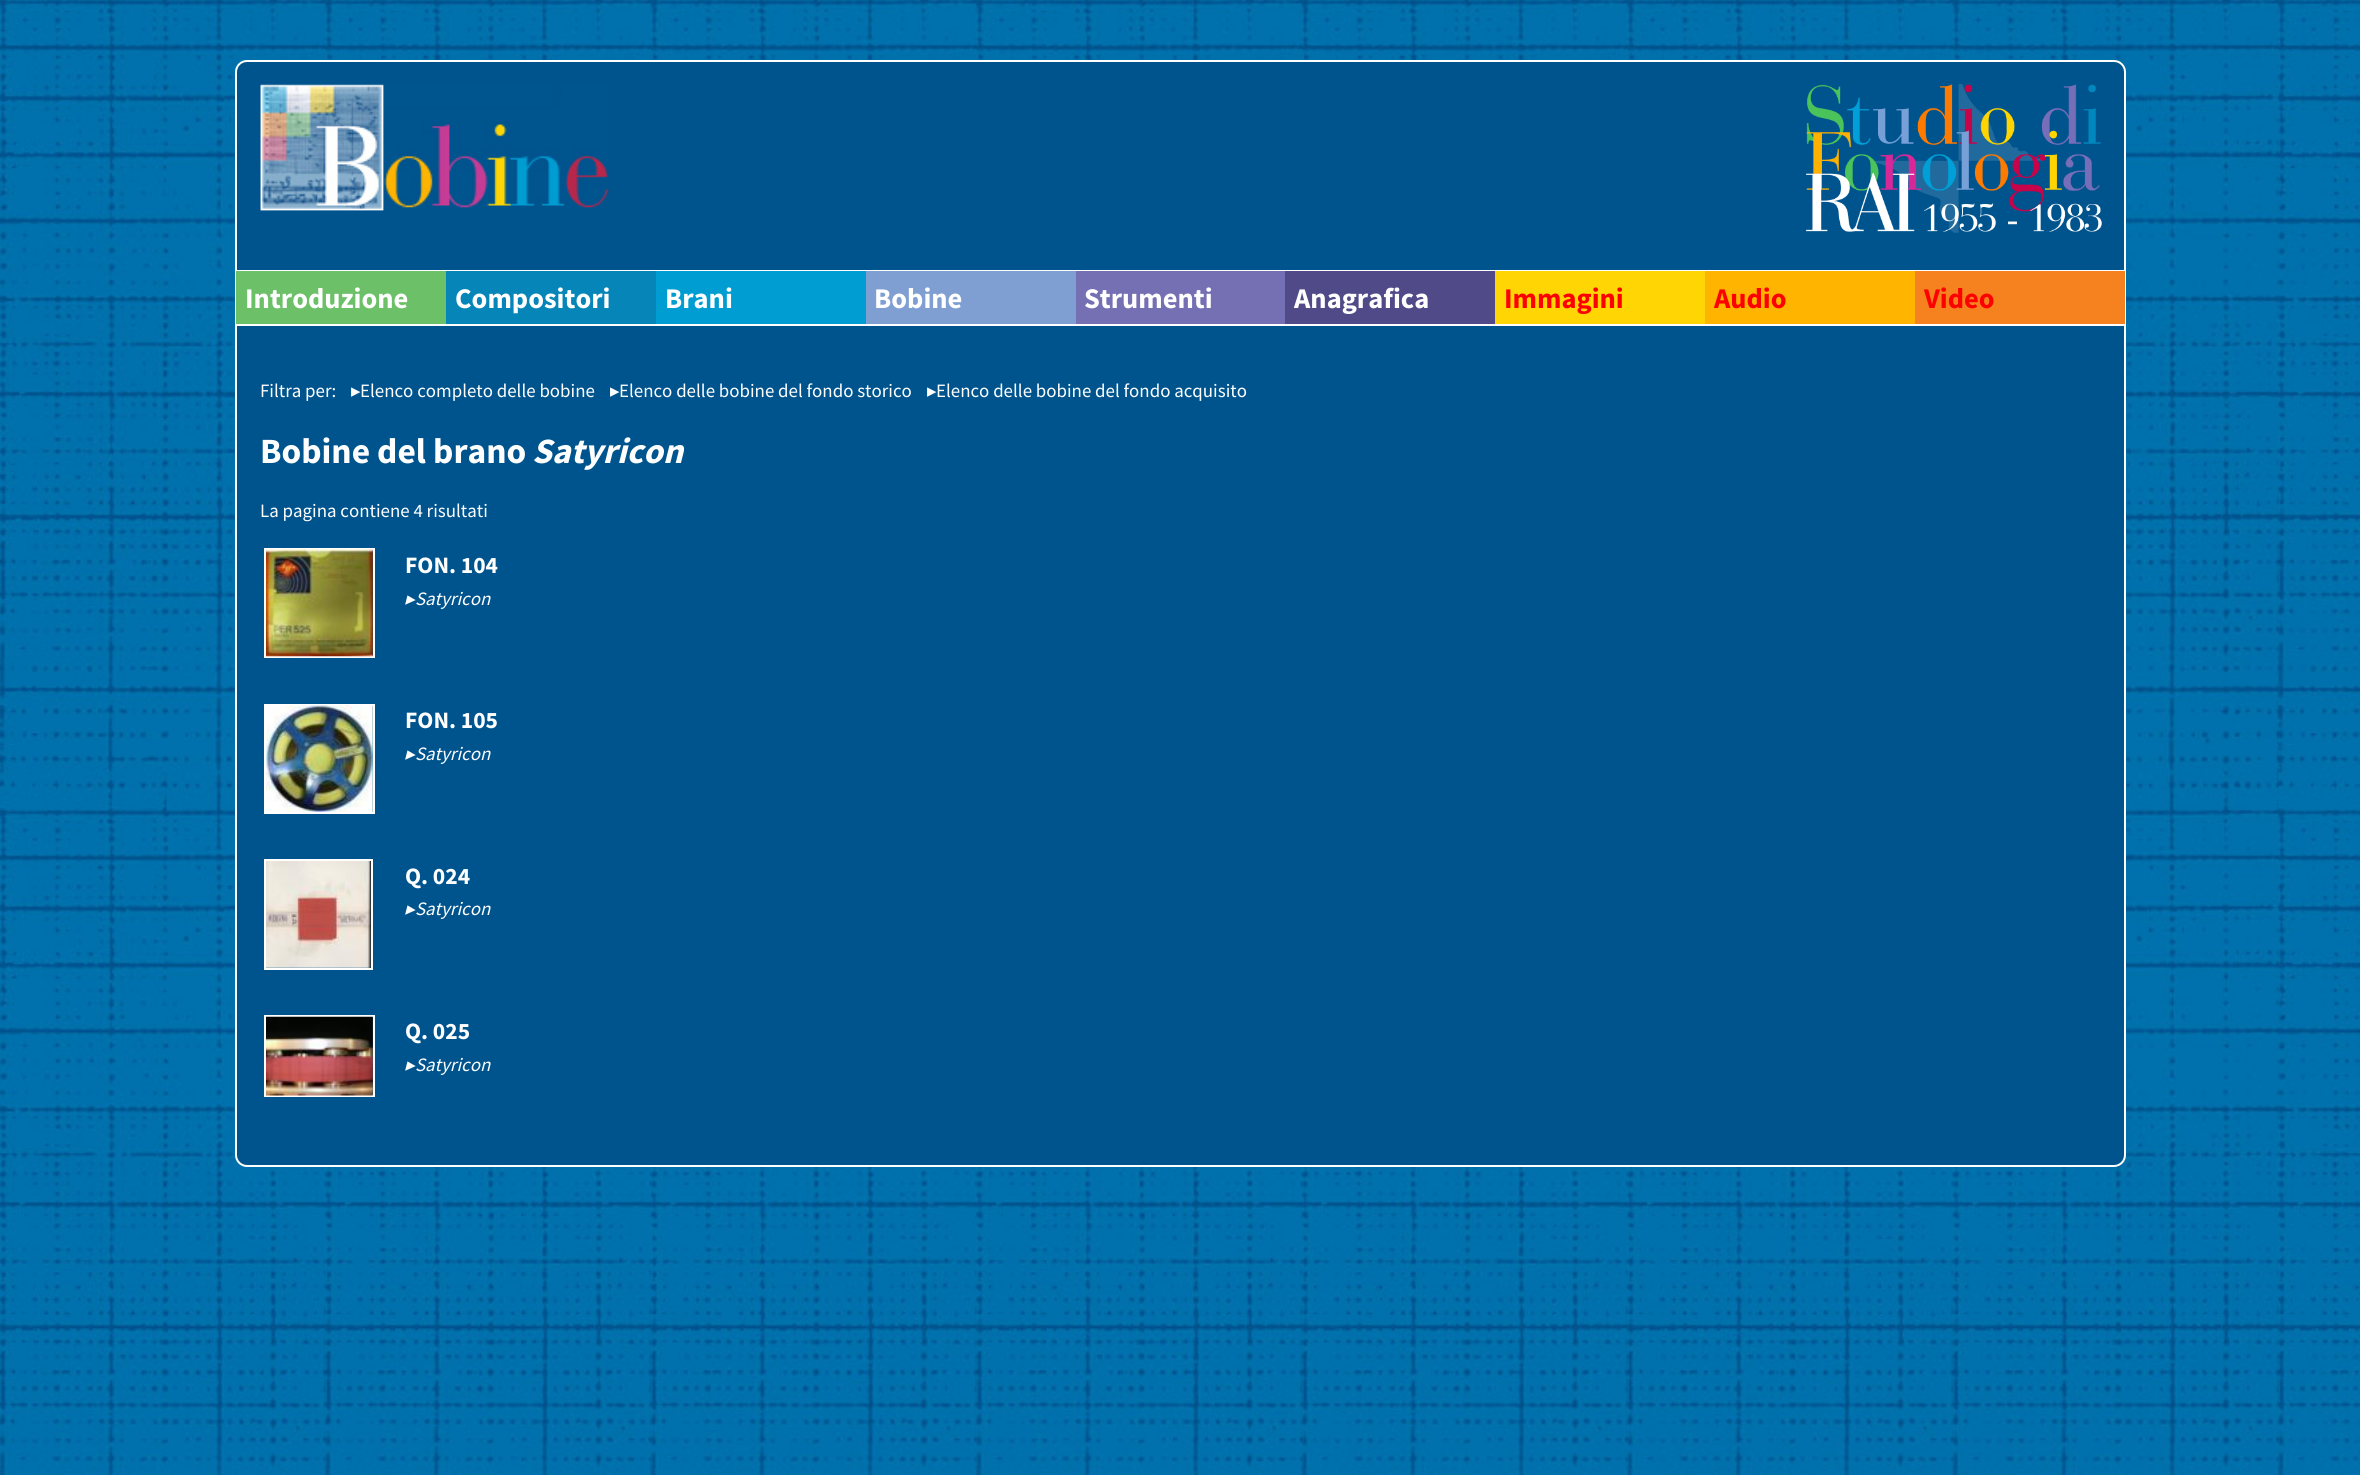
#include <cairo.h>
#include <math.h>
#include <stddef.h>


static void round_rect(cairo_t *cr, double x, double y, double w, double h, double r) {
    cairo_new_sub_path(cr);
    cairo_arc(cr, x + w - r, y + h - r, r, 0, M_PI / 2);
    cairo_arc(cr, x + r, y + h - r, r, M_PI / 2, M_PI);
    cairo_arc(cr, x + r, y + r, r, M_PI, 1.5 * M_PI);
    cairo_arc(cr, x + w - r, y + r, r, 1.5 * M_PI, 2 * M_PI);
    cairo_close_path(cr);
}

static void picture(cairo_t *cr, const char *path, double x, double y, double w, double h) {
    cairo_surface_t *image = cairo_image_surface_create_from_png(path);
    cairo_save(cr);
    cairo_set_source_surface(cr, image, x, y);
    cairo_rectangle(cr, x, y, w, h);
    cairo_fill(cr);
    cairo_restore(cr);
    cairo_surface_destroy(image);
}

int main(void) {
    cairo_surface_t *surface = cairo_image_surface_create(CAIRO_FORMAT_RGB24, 2360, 1475);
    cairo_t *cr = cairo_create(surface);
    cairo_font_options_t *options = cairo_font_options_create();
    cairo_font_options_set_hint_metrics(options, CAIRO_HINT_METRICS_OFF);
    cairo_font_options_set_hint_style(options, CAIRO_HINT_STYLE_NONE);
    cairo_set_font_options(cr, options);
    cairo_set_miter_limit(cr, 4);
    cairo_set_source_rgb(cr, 1, 1, 1);
    cairo_paint(cr);
    picture(cr, "img1.png", 0, 0, 2360, 1475);
    cairo_set_source_rgb(cr, 0, 0.329, 0.557);
    round_rect(cr, 236, 61, 1889, 1105, 11);
    cairo_fill_preserve(cr);
    cairo_set_source_rgb(cr, 1, 1, 1);
    cairo_stroke(cr);
    picture(cr, "img2.png", 260, 84, 349, 127);
    picture(cr, "img3.png", 1806, 84, 296, 149);
    cairo_rectangle(cr, 236, 270, 1889, 1);
    cairo_fill(cr);
    cairo_rectangle(cr, 236, 324, 1889, 2);
    cairo_fill(cr);
    cairo_set_source_rgb(cr, 0.424, 0.753, 0.408);
    cairo_rectangle(cr, 236, 271, 210, 53);
    cairo_fill(cr);
    cairo_select_font_face(cr, "Source Sans Pro", CAIRO_FONT_SLANT_NORMAL, CAIRO_FONT_WEIGHT_BOLD);
    cairo_set_font_size(cr, 28.5);
    cairo_set_source_rgb(cr, 1, 1, 1);
    cairo_move_to(cr, 245, 308);
    cairo_show_text(cr, "Introduzione");
    cairo_set_source_rgb(cr, 0.02, 0.522, 0.722);
    cairo_rectangle(cr, 446, 271, 210, 53);
    cairo_fill(cr);
    cairo_set_source_rgb(cr, 1, 1, 1);
    cairo_move_to(cr, 455, 308);
    cairo_show_text(cr, "Compositori");
    cairo_set_source_rgb(cr, 0, 0.616, 0.824);
    cairo_rectangle(cr, 656, 271, 210, 53);
    cairo_fill(cr);
    cairo_set_source_rgb(cr, 1, 1, 1);
    cairo_move_to(cr, 665, 308);
    cairo_show_text(cr, "Brani");
    cairo_set_source_rgb(cr, 0.498, 0.624, 0.827);
    cairo_rectangle(cr, 866, 271, 210, 53);
    cairo_fill(cr);
    cairo_set_source_rgb(cr, 1, 1, 1);
    cairo_move_to(cr, 874, 308);
    cairo_show_text(cr, "Bobine");
    cairo_set_source_rgb(cr, 0.459, 0.435, 0.702);
    cairo_rectangle(cr, 1076, 271, 209, 53);
    cairo_fill(cr);
    cairo_set_source_rgb(cr, 1, 1, 1);
    cairo_move_to(cr, 1084, 308);
    cairo_show_text(cr, "Strumenti");
    cairo_set_source_rgb(cr, 0.314, 0.29, 0.533);
    cairo_rectangle(cr, 1285, 271, 210, 53);
    cairo_fill(cr);
    cairo_set_source_rgb(cr, 1, 1, 1);
    cairo_move_to(cr, 1294, 308);
    cairo_show_text(cr, "Anagrafica");
    cairo_set_source_rgb(cr, 1, 0.835, 0.012);
    cairo_rectangle(cr, 1495, 271, 210, 53);
    cairo_fill(cr);
    cairo_set_source_rgb(cr, 1, 0, 0);
    cairo_move_to(cr, 1504, 308);
    cairo_show_text(cr, "Immagini");
    cairo_set_source_rgb(cr, 1, 0.706, 0);
    cairo_rectangle(cr, 1705, 271, 210, 53);
    cairo_fill(cr);
    cairo_set_source_rgb(cr, 1, 0, 0);
    cairo_move_to(cr, 1714, 308);
    cairo_show_text(cr, "Audio");
    cairo_set_source_rgb(cr, 0.961, 0.51, 0.122);
    cairo_rectangle(cr, 1915, 271, 210, 53);
    cairo_fill(cr);
    cairo_set_source_rgb(cr, 1, 0, 0);
    cairo_move_to(cr, 1924, 308);
    cairo_show_text(cr, "Video");
    cairo_select_font_face(cr, "Source Sans Pro", CAIRO_FONT_SLANT_NORMAL, CAIRO_FONT_WEIGHT_NORMAL);
    cairo_set_font_size(cr, 18.9);
    cairo_set_source_rgb(cr, 1, 1, 1);
    cairo_move_to(cr, 260, 397);
    cairo_show_text(cr, "Filtra per:");
    cairo_select_font_face(cr, "DejaVu Sans", CAIRO_FONT_SLANT_NORMAL, CAIRO_FONT_WEIGHT_NORMAL);
    cairo_move_to(cr, 351, 397);
    cairo_show_text(cr, "▸");
    cairo_select_font_face(cr, "Source Sans Pro", CAIRO_FONT_SLANT_NORMAL, CAIRO_FONT_WEIGHT_NORMAL);
    cairo_move_to(cr, 360, 397);
    cairo_show_text(cr, "Elenco completo delle bobine");
    cairo_select_font_face(cr, "DejaVu Sans", CAIRO_FONT_SLANT_NORMAL, CAIRO_FONT_WEIGHT_NORMAL);
    cairo_move_to(cr, 610, 397);
    cairo_show_text(cr, "▸");
    cairo_select_font_face(cr, "Source Sans Pro", CAIRO_FONT_SLANT_NORMAL, CAIRO_FONT_WEIGHT_NORMAL);
    cairo_move_to(cr, 619, 397);
    cairo_show_text(cr, "Elenco delle bobine del fondo storico");
    cairo_select_font_face(cr, "DejaVu Sans", CAIRO_FONT_SLANT_NORMAL, CAIRO_FONT_WEIGHT_NORMAL);
    cairo_move_to(cr, 927, 397);
    cairo_show_text(cr, "▸");
    cairo_select_font_face(cr, "Source Sans Pro", CAIRO_FONT_SLANT_NORMAL, CAIRO_FONT_WEIGHT_NORMAL);
    cairo_move_to(cr, 936, 397);
    cairo_show_text(cr, "Elenco delle bobine del fondo acquisito");
    cairo_select_font_face(cr, "Source Sans Pro", CAIRO_FONT_SLANT_NORMAL, CAIRO_FONT_WEIGHT_BOLD);
    cairo_set_font_size(cr, 35.5);
    cairo_move_to(cr, 260, 463);
    cairo_show_text(cr, "Bobine del brano");
    cairo_select_font_face(cr, "Source Sans Pro", CAIRO_FONT_SLANT_ITALIC, CAIRO_FONT_WEIGHT_BOLD);
    cairo_move_to(cr, 532, 463);
    cairo_show_text(cr, "Satyricon");
    cairo_select_font_face(cr, "Source Sans Pro", CAIRO_FONT_SLANT_NORMAL, CAIRO_FONT_WEIGHT_NORMAL);
    cairo_set_font_size(cr, 18.9);
    cairo_move_to(cr, 260, 517);
    cairo_show_text(cr, "La pagina contiene 4 risultati");
    cairo_rectangle(cr, 265, 549, 109, 108);
    cairo_stroke(cr);
    picture(cr, "img4.png", 266, 549, 107, 108);
    cairo_select_font_face(cr, "Source Sans Pro", CAIRO_FONT_SLANT_NORMAL, CAIRO_FONT_WEIGHT_BOLD);
    cairo_set_font_size(cr, 23.5);
    cairo_move_to(cr, 405, 573);
    cairo_show_text(cr, "FON. 104");
    cairo_select_font_face(cr, "DejaVu Sans", CAIRO_FONT_SLANT_ITALIC, CAIRO_FONT_WEIGHT_NORMAL);
    cairo_set_font_size(cr, 18.9);
    cairo_move_to(cr, 405, 605);
    cairo_show_text(cr, "▸");
    cairo_select_font_face(cr, "Source Sans Pro", CAIRO_FONT_SLANT_ITALIC, CAIRO_FONT_WEIGHT_NORMAL);
    cairo_move_to(cr, 415, 605);
    cairo_show_text(cr, "Satyricon");
    cairo_rectangle(cr, 265, 705, 109, 108);
    cairo_stroke(cr);
    picture(cr, "img5.png", 266, 705, 107, 107);
    cairo_select_font_face(cr, "Source Sans Pro", CAIRO_FONT_SLANT_NORMAL, CAIRO_FONT_WEIGHT_BOLD);
    cairo_set_font_size(cr, 23.5);
    cairo_move_to(cr, 405, 728);
    cairo_show_text(cr, "FON. 105");
    cairo_select_font_face(cr, "DejaVu Sans", CAIRO_FONT_SLANT_ITALIC, CAIRO_FONT_WEIGHT_NORMAL);
    cairo_set_font_size(cr, 18.9);
    cairo_move_to(cr, 405, 760);
    cairo_show_text(cr, "▸");
    cairo_select_font_face(cr, "Source Sans Pro", CAIRO_FONT_SLANT_ITALIC, CAIRO_FONT_WEIGHT_NORMAL);
    cairo_move_to(cr, 415, 760);
    cairo_show_text(cr, "Satyricon");
    cairo_rectangle(cr, 265, 860, 107, 109);
    cairo_stroke(cr);
    picture(cr, "img6.png", 266, 861, 105, 107);
    cairo_select_font_face(cr, "Source Sans Pro", CAIRO_FONT_SLANT_NORMAL, CAIRO_FONT_WEIGHT_BOLD);
    cairo_set_font_size(cr, 23.5);
    cairo_move_to(cr, 405, 884);
    cairo_show_text(cr, "Q. 024");
    cairo_select_font_face(cr, "DejaVu Sans", CAIRO_FONT_SLANT_ITALIC, CAIRO_FONT_WEIGHT_NORMAL);
    cairo_set_font_size(cr, 18.9);
    cairo_move_to(cr, 405, 915);
    cairo_show_text(cr, "▸");
    cairo_select_font_face(cr, "Source Sans Pro", CAIRO_FONT_SLANT_ITALIC, CAIRO_FONT_WEIGHT_NORMAL);
    cairo_move_to(cr, 415, 915);
    cairo_show_text(cr, "Satyricon");
    cairo_rectangle(cr, 265, 1016, 109, 80);
    cairo_stroke(cr);
    picture(cr, "img7.png", 266, 1016, 107, 80);
    cairo_select_font_face(cr, "Source Sans Pro", CAIRO_FONT_SLANT_NORMAL, CAIRO_FONT_WEIGHT_BOLD);
    cairo_set_font_size(cr, 23.5);
    cairo_move_to(cr, 405, 1039);
    cairo_show_text(cr, "Q. 025");
    cairo_select_font_face(cr, "DejaVu Sans", CAIRO_FONT_SLANT_ITALIC, CAIRO_FONT_WEIGHT_NORMAL);
    cairo_set_font_size(cr, 18.9);
    cairo_move_to(cr, 405, 1071);
    cairo_show_text(cr, "▸");
    cairo_select_font_face(cr, "Source Sans Pro", CAIRO_FONT_SLANT_ITALIC, CAIRO_FONT_WEIGHT_NORMAL);
    cairo_move_to(cr, 415, 1071);
    cairo_show_text(cr, "Satyricon");
    cairo_surface_write_to_png(surface, "page.png");
    cairo_font_options_destroy(options);
    cairo_destroy(cr);
    cairo_surface_destroy(surface);
    return 0;
}
